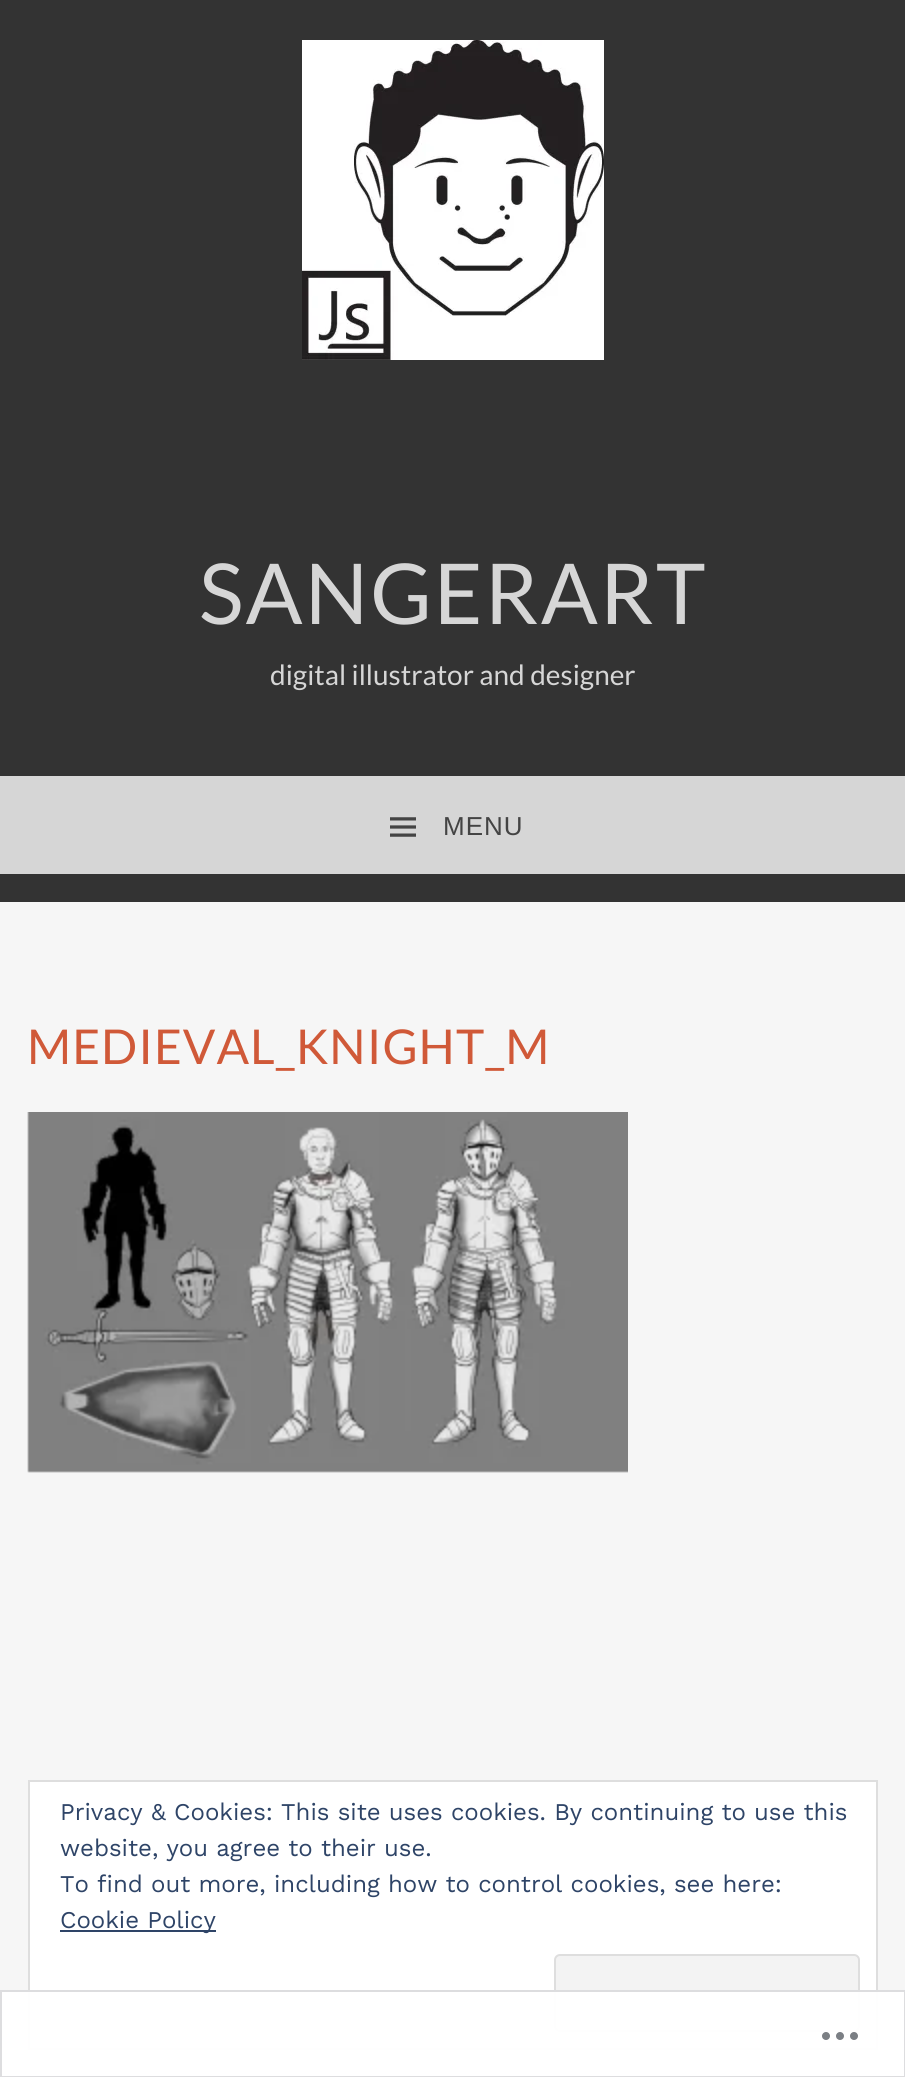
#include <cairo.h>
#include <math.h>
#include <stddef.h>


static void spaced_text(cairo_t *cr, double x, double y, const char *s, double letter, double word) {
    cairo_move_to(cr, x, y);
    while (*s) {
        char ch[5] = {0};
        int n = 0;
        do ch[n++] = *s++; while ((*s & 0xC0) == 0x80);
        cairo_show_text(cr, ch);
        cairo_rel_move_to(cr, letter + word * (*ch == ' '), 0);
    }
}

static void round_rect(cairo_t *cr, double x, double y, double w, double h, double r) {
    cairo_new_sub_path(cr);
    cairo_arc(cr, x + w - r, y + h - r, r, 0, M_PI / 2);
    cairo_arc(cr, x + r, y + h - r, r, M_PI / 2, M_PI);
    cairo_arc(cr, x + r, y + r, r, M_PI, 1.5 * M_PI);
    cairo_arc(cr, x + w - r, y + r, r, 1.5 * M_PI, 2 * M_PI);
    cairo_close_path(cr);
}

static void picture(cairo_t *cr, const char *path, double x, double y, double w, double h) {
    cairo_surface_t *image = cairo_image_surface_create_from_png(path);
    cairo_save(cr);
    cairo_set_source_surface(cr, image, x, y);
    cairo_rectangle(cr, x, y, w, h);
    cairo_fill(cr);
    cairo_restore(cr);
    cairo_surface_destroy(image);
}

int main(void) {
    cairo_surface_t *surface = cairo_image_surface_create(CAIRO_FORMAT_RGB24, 905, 2077);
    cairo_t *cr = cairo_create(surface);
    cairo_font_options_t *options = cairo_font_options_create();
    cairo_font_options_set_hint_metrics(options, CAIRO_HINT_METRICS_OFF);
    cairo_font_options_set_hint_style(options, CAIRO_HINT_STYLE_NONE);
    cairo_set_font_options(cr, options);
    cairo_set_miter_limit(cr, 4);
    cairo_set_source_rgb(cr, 0.2, 0.2, 0.2);
    cairo_paint(cr);
    picture(cr, "img1.png", 302, 40, 302, 320);
    cairo_select_font_face(cr, "Lato", CAIRO_FONT_SLANT_NORMAL, CAIRO_FONT_WEIGHT_NORMAL);
    cairo_set_font_size(cr, 84);
    cairo_set_source_rgb(cr, 0.839, 0.839, 0.839);
    spaced_text(cr, 199, 624, "SANGERART", 2, 0);
    cairo_set_font_size(cr, 28);
    cairo_move_to(cr, 270, 685);
    cairo_show_text(cr, "digital illustrator and designer");
    cairo_rectangle(cr, 0, 776, 905, 98);
    cairo_fill(cr);
    picture(cr, "img2.png", 390, 817, 26, 20);
    cairo_select_font_face(cr, "Liberation Sans", CAIRO_FONT_SLANT_NORMAL, CAIRO_FONT_WEIGHT_NORMAL);
    cairo_set_font_size(cr, 26);
    cairo_set_source_rgb(cr, 0.267, 0.267, 0.267);
    spaced_text(cr, 443, 835, "MENU", 1, 0);
    cairo_set_source_rgb(cr, 0.961, 0.961, 0.961);
    cairo_rectangle(cr, 0, 902, 905, 1175);
    cairo_fill(cr);
    cairo_select_font_face(cr, "Lato", CAIRO_FONT_SLANT_NORMAL, CAIRO_FONT_WEIGHT_NORMAL);
    cairo_set_font_size(cr, 48);
    cairo_set_source_rgb(cr, 0.816, 0.349, 0.22);
    spaced_text(cr, 27, 1064, "MEDIEVAL_KNIGHT_M", 1, 0);
    picture(cr, "img3.png", 27, 1112, 601, 361);
    cairo_set_source_rgb(cr, 1, 1, 1);
    cairo_rectangle(cr, 29, 1781, 848, 268);
    cairo_fill_preserve(cr);
    cairo_set_source_rgb(cr, 0.871, 0.871, 0.871);
    cairo_stroke(cr);
    cairo_select_font_face(cr, "Work Sans", CAIRO_FONT_SLANT_NORMAL, CAIRO_FONT_WEIGHT_NORMAL);
    cairo_set_font_size(cr, 24);
    cairo_set_source_rgb(cr, 0.18, 0.267, 0.404);
    cairo_move_to(cr, 60, 1820);
    cairo_show_text(cr, "Privacy & Cookies: This site uses cookies. By continuing to use this");
    cairo_move_to(cr, 60, 1856);
    cairo_show_text(cr, "website, you agree to their use.");
    cairo_move_to(cr, 60, 1892);
    cairo_show_text(cr, "To find out more, including how to control cookies, see here:");
    cairo_rectangle(cr, 60, 1930, 156, 2);
    cairo_fill(cr);
    cairo_move_to(cr, 60, 1928);
    cairo_show_text(cr, "Cookie Policy");
    cairo_set_source_rgb(cr, 0.953, 0.953, 0.953);
    round_rect(cr, 555, 1955, 304, 76, 5);
    cairo_fill_preserve(cr);
    cairo_set_source_rgb(cr, 0.871, 0.871, 0.871);
    cairo_stroke(cr);
    cairo_set_source_rgba(cr, 1, 1, 1, 0.98);
    cairo_rectangle(cr, 0, 1990, 905, 87);
    cairo_fill(cr);
    cairo_rectangle(cr, 1, 1991, 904, 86);
    cairo_set_source_rgba(cr, 0.863, 0.863, 0.871, 0.98);
    cairo_stroke(cr);
    picture(cr, "img4.png", 822, 2032, 36, 8);
    cairo_surface_write_to_png(surface, "page.png");
    cairo_font_options_destroy(options);
    cairo_destroy(cr);
    cairo_surface_destroy(surface);
    return 0;
}
